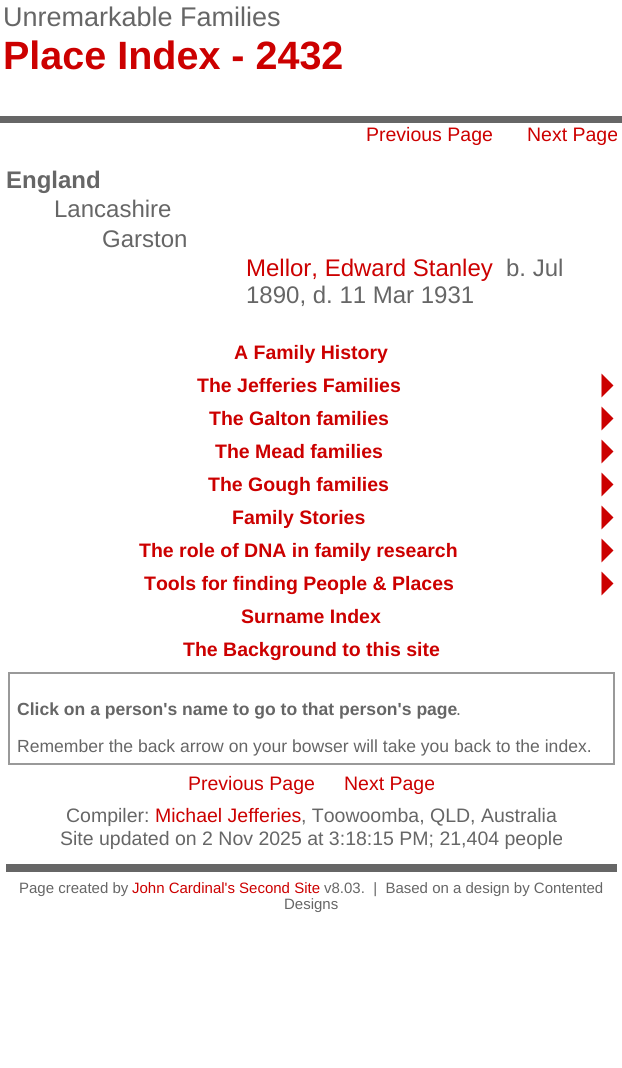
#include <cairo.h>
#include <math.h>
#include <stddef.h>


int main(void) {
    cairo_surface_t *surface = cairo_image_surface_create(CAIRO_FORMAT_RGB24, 622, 1068);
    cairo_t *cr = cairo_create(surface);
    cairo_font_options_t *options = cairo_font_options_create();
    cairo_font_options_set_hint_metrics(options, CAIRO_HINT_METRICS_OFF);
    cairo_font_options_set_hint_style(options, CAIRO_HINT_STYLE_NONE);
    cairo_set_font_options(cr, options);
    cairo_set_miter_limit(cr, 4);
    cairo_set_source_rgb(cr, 1, 1, 1);
    cairo_paint(cr);
    cairo_select_font_face(cr, "Liberation Sans", CAIRO_FONT_SLANT_NORMAL, CAIRO_FONT_WEIGHT_NORMAL);
    cairo_set_font_size(cr, 27);
    cairo_set_source_rgb(cr, 0.4, 0.4, 0.4);
    cairo_move_to(cr, 3, 26);
    cairo_show_text(cr, "Unremarkable Families");
    cairo_select_font_face(cr, "Liberation Sans", CAIRO_FONT_SLANT_NORMAL, CAIRO_FONT_WEIGHT_BOLD);
    cairo_set_font_size(cr, 39.5);
    cairo_set_source_rgb(cr, 0.8, 0, 0);
    cairo_move_to(cr, 3, 69);
    cairo_show_text(cr, "Place Index - 2432");
    cairo_set_source_rgb(cr, 0.4, 0.4, 0.4);
    cairo_rectangle(cr, 0, 116, 622, 7);
    cairo_fill(cr);
    cairo_select_font_face(cr, "Liberation Sans", CAIRO_FONT_SLANT_NORMAL, CAIRO_FONT_WEIGHT_NORMAL);
    cairo_set_font_size(cr, 19.5);
    cairo_set_source_rgb(cr, 0.8, 0, 0);
    cairo_move_to(cr, 366, 141);
    cairo_show_text(cr, "Previous Page");
    cairo_move_to(cr, 527, 141);
    cairo_show_text(cr, "Next Page");
    cairo_select_font_face(cr, "Liberation Sans", CAIRO_FONT_SLANT_NORMAL, CAIRO_FONT_WEIGHT_BOLD);
    cairo_set_font_size(cr, 24);
    cairo_set_source_rgb(cr, 0.4, 0.4, 0.4);
    cairo_move_to(cr, 6, 188);
    cairo_show_text(cr, "England");
    cairo_select_font_face(cr, "Liberation Sans", CAIRO_FONT_SLANT_NORMAL, CAIRO_FONT_WEIGHT_NORMAL);
    cairo_move_to(cr, 54, 217);
    cairo_show_text(cr, "Lancashire");
    cairo_move_to(cr, 102, 247);
    cairo_show_text(cr, "Garston");
    cairo_set_source_rgb(cr, 0.8, 0, 0);
    cairo_move_to(cr, 246, 276);
    cairo_show_text(cr, "Mellor, Edward Stanley");
    cairo_set_source_rgb(cr, 0.4, 0.4, 0.4);
    cairo_move_to(cr, 506, 276);
    cairo_show_text(cr, "b. Jul");
    cairo_move_to(cr, 246, 303);
    cairo_show_text(cr, "1890, d. 11 Mar 1931");
    cairo_select_font_face(cr, "Liberation Sans", CAIRO_FONT_SLANT_NORMAL, CAIRO_FONT_WEIGHT_BOLD);
    cairo_set_font_size(cr, 19.5);
    cairo_set_source_rgb(cr, 0.8, 0, 0);
    cairo_move_to(cr, 234, 359);
    cairo_show_text(cr, "A Family History");
    cairo_move_to(cr, 197, 392);
    cairo_show_text(cr, "The Jefferies Families");
    cairo_new_path(cr);
    cairo_move_to(cr, 601.5, 397.5);
    cairo_line_to(cr, 601.5, 373.5);
    cairo_line_to(cr, 613.5, 385.5);
    cairo_close_path(cr);
    cairo_fill(cr);
    cairo_move_to(cr, 209, 425);
    cairo_show_text(cr, "The Galton families");
    cairo_new_path(cr);
    cairo_move_to(cr, 601.5, 430.5);
    cairo_line_to(cr, 601.5, 406.5);
    cairo_line_to(cr, 613.5, 418.5);
    cairo_close_path(cr);
    cairo_fill(cr);
    cairo_move_to(cr, 215, 458);
    cairo_show_text(cr, "The Mead families");
    cairo_new_path(cr);
    cairo_move_to(cr, 601.5, 463.5);
    cairo_line_to(cr, 601.5, 439.5);
    cairo_line_to(cr, 613.5, 451.5);
    cairo_close_path(cr);
    cairo_fill(cr);
    cairo_move_to(cr, 208, 491);
    cairo_show_text(cr, "The Gough families");
    cairo_new_path(cr);
    cairo_move_to(cr, 601.5, 496.5);
    cairo_line_to(cr, 601.5, 472.5);
    cairo_line_to(cr, 613.5, 484.5);
    cairo_close_path(cr);
    cairo_fill(cr);
    cairo_move_to(cr, 232, 524);
    cairo_show_text(cr, "Family Stories");
    cairo_new_path(cr);
    cairo_move_to(cr, 601.5, 529.5);
    cairo_line_to(cr, 601.5, 505.5);
    cairo_line_to(cr, 613.5, 517.5);
    cairo_close_path(cr);
    cairo_fill(cr);
    cairo_move_to(cr, 139, 557);
    cairo_show_text(cr, "The role of DNA in family research");
    cairo_new_path(cr);
    cairo_move_to(cr, 601.5, 562.5);
    cairo_line_to(cr, 601.5, 538.5);
    cairo_line_to(cr, 613.5, 550.5);
    cairo_close_path(cr);
    cairo_fill(cr);
    cairo_move_to(cr, 144, 590);
    cairo_show_text(cr, "Tools for finding People & Places");
    cairo_new_path(cr);
    cairo_move_to(cr, 601.5, 595.5);
    cairo_line_to(cr, 601.5, 571.5);
    cairo_line_to(cr, 613.5, 583.5);
    cairo_close_path(cr);
    cairo_fill(cr);
    cairo_move_to(cr, 241, 623);
    cairo_show_text(cr, "Surname Index");
    cairo_move_to(cr, 183, 656);
    cairo_show_text(cr, "The Background to this site");
    cairo_rectangle(cr, 9, 673, 605, 91);
    cairo_set_source_rgb(cr, 0.6, 0.6, 0.6);
    cairo_stroke(cr);
    cairo_set_font_size(cr, 17.55);
    cairo_set_source_rgb(cr, 0.4, 0.4, 0.4);
    cairo_move_to(cr, 17, 715);
    cairo_show_text(cr, "Click on a person's name to go to that person's page");
    cairo_select_font_face(cr, "Liberation Sans", CAIRO_FONT_SLANT_NORMAL, CAIRO_FONT_WEIGHT_NORMAL);
    cairo_move_to(cr, 456, 715);
    cairo_show_text(cr, ".");
    cairo_move_to(cr, 17, 752);
    cairo_show_text(cr, "Remember the back arrow on your bowser will take you back to the index.");
    cairo_set_font_size(cr, 19.5);
    cairo_set_source_rgb(cr, 0.8, 0, 0);
    cairo_move_to(cr, 188, 790);
    cairo_show_text(cr, "Previous Page");
    cairo_move_to(cr, 344, 790);
    cairo_show_text(cr, "Next Page");
    cairo_set_source_rgb(cr, 0.4, 0.4, 0.4);
    cairo_move_to(cr, 66, 822);
    cairo_show_text(cr, "Compiler:");
    cairo_set_source_rgb(cr, 0.8, 0, 0);
    cairo_move_to(cr, 155, 822);
    cairo_show_text(cr, "Michael Jefferies");
    cairo_set_source_rgb(cr, 0.4, 0.4, 0.4);
    cairo_move_to(cr, 301, 822);
    cairo_show_text(cr, ", Toowoomba, QLD, Australia");
    cairo_move_to(cr, 60, 845);
    cairo_show_text(cr, "Site updated on 2 Nov 2025 at 3:18:15 PM; 21,404 people");
    cairo_rectangle(cr, 6, 864, 611, 8);
    cairo_fill(cr);
    cairo_set_font_size(cr, 15);
    cairo_move_to(cr, 19, 893);
    cairo_show_text(cr, "Page created by");
    cairo_set_source_rgb(cr, 0.8, 0, 0);
    cairo_move_to(cr, 132, 893);
    cairo_show_text(cr, "John Cardinal's Second Site");
    cairo_set_source_rgb(cr, 0.4, 0.4, 0.4);
    cairo_move_to(cr, 324, 893);
    cairo_show_text(cr, "v8.03.  |  Based on a design by Contented");
    cairo_move_to(cr, 284, 909);
    cairo_show_text(cr, "Designs");
    cairo_surface_write_to_png(surface, "page.png");
    cairo_font_options_destroy(options);
    cairo_destroy(cr);
    cairo_surface_destroy(surface);
    return 0;
}
